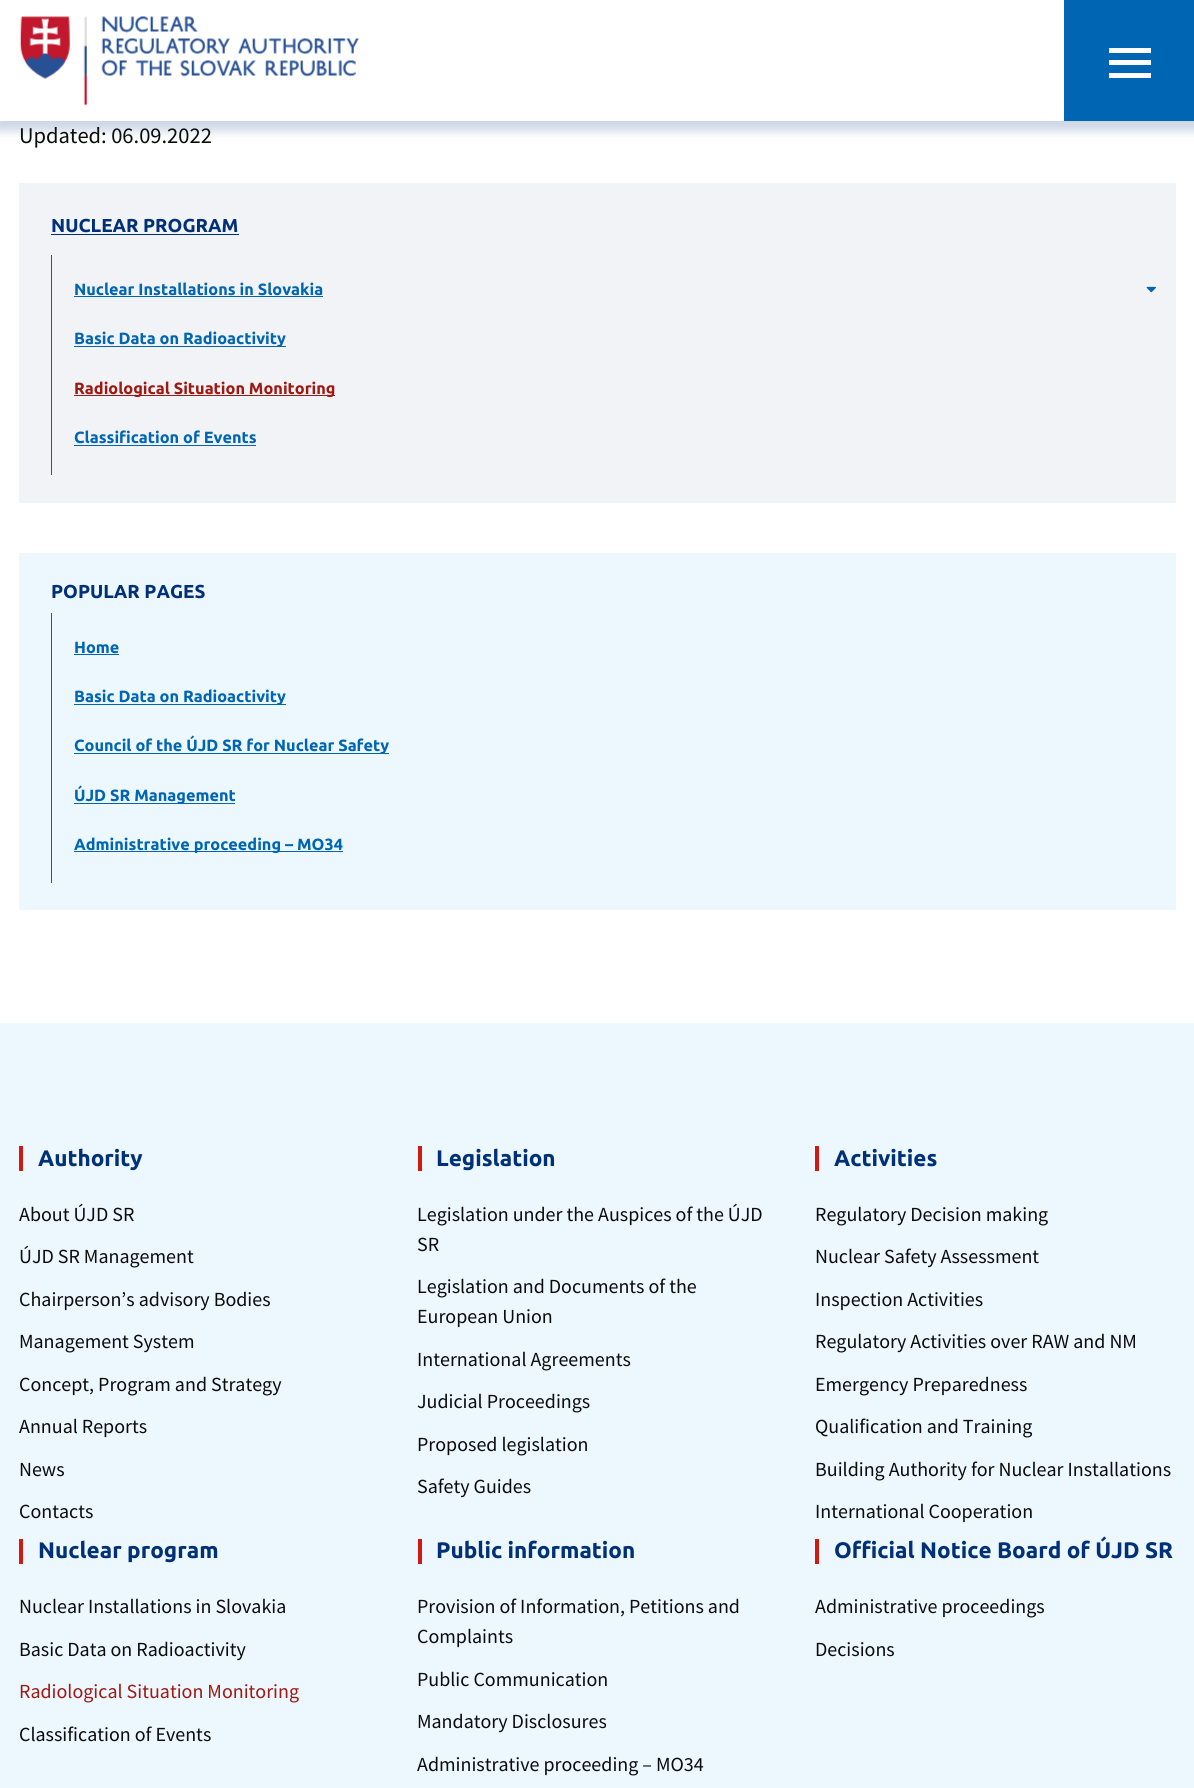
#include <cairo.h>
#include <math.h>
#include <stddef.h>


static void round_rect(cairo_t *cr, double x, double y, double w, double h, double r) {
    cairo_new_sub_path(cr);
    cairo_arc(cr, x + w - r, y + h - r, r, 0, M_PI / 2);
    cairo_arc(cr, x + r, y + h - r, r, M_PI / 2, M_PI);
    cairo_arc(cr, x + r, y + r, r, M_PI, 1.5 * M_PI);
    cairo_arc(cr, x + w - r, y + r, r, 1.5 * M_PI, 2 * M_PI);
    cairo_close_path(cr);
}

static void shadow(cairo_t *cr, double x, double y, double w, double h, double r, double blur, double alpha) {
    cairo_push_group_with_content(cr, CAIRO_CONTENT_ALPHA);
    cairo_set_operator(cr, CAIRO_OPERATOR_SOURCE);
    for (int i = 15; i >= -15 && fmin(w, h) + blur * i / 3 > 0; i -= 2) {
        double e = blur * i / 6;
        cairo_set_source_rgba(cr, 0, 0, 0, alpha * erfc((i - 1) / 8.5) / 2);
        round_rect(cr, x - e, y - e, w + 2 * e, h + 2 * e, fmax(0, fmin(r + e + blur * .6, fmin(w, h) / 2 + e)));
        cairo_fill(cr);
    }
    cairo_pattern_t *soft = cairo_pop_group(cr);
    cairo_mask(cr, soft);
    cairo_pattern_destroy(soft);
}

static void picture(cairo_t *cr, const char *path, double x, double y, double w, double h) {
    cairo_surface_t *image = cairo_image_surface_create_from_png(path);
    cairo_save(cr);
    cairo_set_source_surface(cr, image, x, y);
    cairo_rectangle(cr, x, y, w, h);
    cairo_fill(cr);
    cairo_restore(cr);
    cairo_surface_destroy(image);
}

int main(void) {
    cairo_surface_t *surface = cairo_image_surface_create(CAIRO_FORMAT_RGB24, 1194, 1788);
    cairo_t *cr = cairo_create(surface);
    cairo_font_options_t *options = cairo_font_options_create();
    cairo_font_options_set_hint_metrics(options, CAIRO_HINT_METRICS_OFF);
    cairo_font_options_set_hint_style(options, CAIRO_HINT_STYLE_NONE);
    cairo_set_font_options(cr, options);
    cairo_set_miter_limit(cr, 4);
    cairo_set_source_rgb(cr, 1, 1, 1);
    cairo_paint(cr);
    cairo_set_source_rgb(cr, 0, 0.188, 0.471);
    shadow(cr, -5, -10, 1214, 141, 0, 5, 0.2);
    cairo_set_source_rgb(cr, 1, 1, 1);
    cairo_rectangle(cr, 0, 0, 1064, 121);
    cairo_fill(cr);
    picture(cr, "img1.png", 20, 16, 339, 90);
    cairo_set_source_rgb(cr, 0, 0.396, 0.702);
    cairo_rectangle(cr, 1064, 0, 130, 121);
    cairo_fill(cr);
    cairo_set_source_rgb(cr, 1, 1, 1);
    cairo_rectangle(cr, 1109, 48, 42, 5);
    cairo_fill(cr);
    cairo_rectangle(cr, 1109, 60, 42, 5);
    cairo_fill(cr);
    cairo_rectangle(cr, 1109, 73, 42, 5);
    cairo_fill(cr);
    cairo_select_font_face(cr, "Source Sans Pro", CAIRO_FONT_SLANT_NORMAL, CAIRO_FONT_WEIGHT_NORMAL);
    cairo_set_font_size(cr, 22.5);
    cairo_set_source_rgb(cr, 0.043, 0.047, 0.047);
    cairo_move_to(cr, 19, 143);
    cairo_show_text(cr, "Updated: 06.09.2022");
    cairo_set_source_rgb(cr, 0.949, 0.953, 0.965);
    cairo_rectangle(cr, 19, 183, 1157, 320);
    cairo_fill(cr);
    cairo_select_font_face(cr, "Ubuntu", CAIRO_FONT_SLANT_NORMAL, CAIRO_FONT_WEIGHT_BOLD);
    cairo_set_font_size(cr, 18.75);
    cairo_set_source_rgb(cr, 0, 0.188, 0.471);
    cairo_move_to(cr, 51, 232);
    cairo_show_text(cr, "NUCLEAR PROGRAM");
    cairo_rectangle(cr, 51, 234, 188, 1);
    cairo_fill(cr);
    cairo_set_source_rgb(cr, 0, 0.396, 0.702);
    cairo_rectangle(cr, 51, 255, 1, 220);
    cairo_fill(cr);
    cairo_set_font_size(cr, 16.25);
    cairo_move_to(cr, 74, 295);
    cairo_show_text(cr, "Nuclear Installations in Slovakia");
    cairo_rectangle(cr, 74, 296, 249, 1);
    cairo_fill(cr);
    picture(cr, "img2.png", 1146, 286, 10, 7);
    cairo_rectangle(cr, 74, 346, 212, 1);
    cairo_fill(cr);
    cairo_move_to(cr, 74, 344);
    cairo_show_text(cr, "Basic Data on Radioactivity");
    cairo_set_source_rgb(cr, 0.62, 0.098, 0.071);
    cairo_rectangle(cr, 74, 395, 261, 1);
    cairo_fill(cr);
    cairo_move_to(cr, 74, 394);
    cairo_show_text(cr, "Radiological Situation Monitoring");
    cairo_set_source_rgb(cr, 0, 0.396, 0.702);
    cairo_move_to(cr, 74, 443);
    cairo_show_text(cr, "Classification of Events");
    cairo_rectangle(cr, 74, 445, 182, 1);
    cairo_fill(cr);
    cairo_set_source_rgb(cr, 0.925, 0.965, 0.996);
    cairo_rectangle(cr, 19, 553, 1157, 357);
    cairo_fill(cr);
    cairo_set_font_size(cr, 18.75);
    cairo_set_source_rgb(cr, 0, 0.188, 0.471);
    cairo_move_to(cr, 51, 598);
    cairo_show_text(cr, "POPULAR PAGES");
    cairo_set_source_rgb(cr, 0, 0.396, 0.702);
    cairo_rectangle(cr, 51, 613, 1, 270);
    cairo_fill(cr);
    cairo_set_font_size(cr, 16.25);
    cairo_move_to(cr, 74, 653);
    cairo_show_text(cr, "Home");
    cairo_rectangle(cr, 74, 654, 45, 1);
    cairo_fill(cr);
    cairo_rectangle(cr, 74, 704, 212, 1);
    cairo_fill(cr);
    cairo_move_to(cr, 74, 702);
    cairo_show_text(cr, "Basic Data on Radioactivity");
    cairo_rectangle(cr, 74, 753, 315, 1);
    cairo_fill(cr);
    cairo_move_to(cr, 74, 751);
    cairo_show_text(cr, "Council of the ÚJD SR for Nuclear Safety");
    cairo_rectangle(cr, 74, 803, 161, 1);
    cairo_fill(cr);
    cairo_move_to(cr, 74, 801);
    cairo_show_text(cr, "ÚJD SR Management");
    cairo_rectangle(cr, 74, 851, 269, 1);
    cairo_fill(cr);
    cairo_move_to(cr, 74, 850);
    cairo_show_text(cr, "Administrative proceeding – MO34");
    cairo_set_source_rgb(cr, 0.925, 0.965, 0.996);
    cairo_rectangle(cr, 0, 1023, 1194, 765);
    cairo_fill(cr);
    cairo_set_source_rgb(cr, 0.816, 0.098, 0.059);
    cairo_rectangle(cr, 19, 1146, 4, 25);
    cairo_fill(cr);
    cairo_set_font_size(cr, 22.5);
    cairo_set_source_rgb(cr, 0, 0.188, 0.471);
    cairo_move_to(cr, 38, 1166);
    cairo_show_text(cr, "Authority");
    cairo_select_font_face(cr, "Source Sans Pro", CAIRO_FONT_SLANT_NORMAL, CAIRO_FONT_WEIGHT_NORMAL);
    cairo_set_font_size(cr, 20);
    cairo_set_source_rgb(cr, 0.043, 0.047, 0.047);
    cairo_move_to(cr, 19, 1221);
    cairo_show_text(cr, "About ÚJD SR");
    cairo_move_to(cr, 19, 1263);
    cairo_show_text(cr, "ÚJD SR Management");
    cairo_move_to(cr, 19, 1306);
    cairo_show_text(cr, "Chairperson’s advisory Bodies");
    cairo_move_to(cr, 19, 1348);
    cairo_show_text(cr, "Management System");
    cairo_move_to(cr, 19, 1391);
    cairo_show_text(cr, "Concept, Program and Strategy");
    cairo_move_to(cr, 19, 1433);
    cairo_show_text(cr, "Annual Reports");
    cairo_move_to(cr, 19, 1476);
    cairo_show_text(cr, "News");
    cairo_move_to(cr, 19, 1518);
    cairo_show_text(cr, "Contacts");
    cairo_set_source_rgb(cr, 0.816, 0.098, 0.059);
    cairo_rectangle(cr, 418, 1146, 4, 25);
    cairo_fill(cr);
    cairo_select_font_face(cr, "Ubuntu", CAIRO_FONT_SLANT_NORMAL, CAIRO_FONT_WEIGHT_BOLD);
    cairo_set_font_size(cr, 22.5);
    cairo_set_source_rgb(cr, 0, 0.188, 0.471);
    cairo_move_to(cr, 436, 1166);
    cairo_show_text(cr, "Legislation");
    cairo_select_font_face(cr, "Source Sans Pro", CAIRO_FONT_SLANT_NORMAL, CAIRO_FONT_WEIGHT_NORMAL);
    cairo_set_font_size(cr, 20);
    cairo_set_source_rgb(cr, 0.043, 0.047, 0.047);
    cairo_move_to(cr, 417, 1221);
    cairo_show_text(cr, "Legislation under the Auspices of the ÚJD");
    cairo_move_to(cr, 417, 1251);
    cairo_show_text(cr, "SR");
    cairo_move_to(cr, 417, 1293);
    cairo_show_text(cr, "Legislation and Documents of the");
    cairo_move_to(cr, 417, 1323);
    cairo_show_text(cr, "European Union");
    cairo_move_to(cr, 417, 1366);
    cairo_show_text(cr, "International Agreements");
    cairo_move_to(cr, 417, 1408);
    cairo_show_text(cr, "Judicial Proceedings");
    cairo_move_to(cr, 417, 1451);
    cairo_show_text(cr, "Proposed legislation");
    cairo_move_to(cr, 417, 1493);
    cairo_show_text(cr, "Safety Guides");
    cairo_set_source_rgb(cr, 0.816, 0.098, 0.059);
    cairo_rectangle(cr, 815, 1146, 4, 25);
    cairo_fill(cr);
    cairo_select_font_face(cr, "Ubuntu", CAIRO_FONT_SLANT_NORMAL, CAIRO_FONT_WEIGHT_BOLD);
    cairo_set_font_size(cr, 22.5);
    cairo_set_source_rgb(cr, 0, 0.188, 0.471);
    cairo_move_to(cr, 834, 1166);
    cairo_show_text(cr, "Activities");
    cairo_select_font_face(cr, "Source Sans Pro", CAIRO_FONT_SLANT_NORMAL, CAIRO_FONT_WEIGHT_NORMAL);
    cairo_set_font_size(cr, 20);
    cairo_set_source_rgb(cr, 0.043, 0.047, 0.047);
    cairo_move_to(cr, 815, 1221);
    cairo_show_text(cr, "Regulatory Decision making");
    cairo_move_to(cr, 815, 1263);
    cairo_show_text(cr, "Nuclear Safety Assessment");
    cairo_move_to(cr, 815, 1306);
    cairo_show_text(cr, "Inspection Activities");
    cairo_move_to(cr, 815, 1348);
    cairo_show_text(cr, "Regulatory Activities over RAW and NM");
    cairo_move_to(cr, 815, 1391);
    cairo_show_text(cr, "Emergency Preparedness");
    cairo_move_to(cr, 815, 1433);
    cairo_show_text(cr, "Qualification and Training");
    cairo_move_to(cr, 815, 1476);
    cairo_show_text(cr, "Building Authority for Nuclear Installations");
    cairo_move_to(cr, 815, 1518);
    cairo_show_text(cr, "International Cooperation");
    cairo_set_source_rgb(cr, 0.816, 0.098, 0.059);
    cairo_rectangle(cr, 19, 1539, 4, 25);
    cairo_fill(cr);
    cairo_select_font_face(cr, "Ubuntu", CAIRO_FONT_SLANT_NORMAL, CAIRO_FONT_WEIGHT_BOLD);
    cairo_set_font_size(cr, 22.5);
    cairo_set_source_rgb(cr, 0, 0.188, 0.471);
    cairo_move_to(cr, 38, 1558);
    cairo_show_text(cr, "Nuclear program");
    cairo_select_font_face(cr, "Source Sans Pro", CAIRO_FONT_SLANT_NORMAL, CAIRO_FONT_WEIGHT_NORMAL);
    cairo_set_font_size(cr, 20);
    cairo_set_source_rgb(cr, 0.043, 0.047, 0.047);
    cairo_move_to(cr, 19, 1613);
    cairo_show_text(cr, "Nuclear Installations in Slovakia");
    cairo_move_to(cr, 19, 1656);
    cairo_show_text(cr, "Basic Data on Radioactivity");
    cairo_set_source_rgb(cr, 0.62, 0.098, 0.071);
    cairo_move_to(cr, 19, 1698);
    cairo_show_text(cr, "Radiological Situation Monitoring");
    cairo_set_source_rgb(cr, 0.043, 0.047, 0.047);
    cairo_move_to(cr, 19, 1741);
    cairo_show_text(cr, "Classification of Events");
    cairo_set_source_rgb(cr, 0.816, 0.098, 0.059);
    cairo_rectangle(cr, 418, 1539, 4, 25);
    cairo_fill(cr);
    cairo_select_font_face(cr, "Ubuntu", CAIRO_FONT_SLANT_NORMAL, CAIRO_FONT_WEIGHT_BOLD);
    cairo_set_font_size(cr, 22.5);
    cairo_set_source_rgb(cr, 0, 0.188, 0.471);
    cairo_move_to(cr, 436, 1558);
    cairo_show_text(cr, "Public information");
    cairo_select_font_face(cr, "Source Sans Pro", CAIRO_FONT_SLANT_NORMAL, CAIRO_FONT_WEIGHT_NORMAL);
    cairo_set_font_size(cr, 20);
    cairo_set_source_rgb(cr, 0.043, 0.047, 0.047);
    cairo_move_to(cr, 417, 1613);
    cairo_show_text(cr, "Provision of Information, Petitions and");
    cairo_move_to(cr, 417, 1643);
    cairo_show_text(cr, "Complaints");
    cairo_move_to(cr, 417, 1686);
    cairo_show_text(cr, "Public Communication");
    cairo_move_to(cr, 417, 1728);
    cairo_show_text(cr, "Mandatory Disclosures");
    cairo_move_to(cr, 417, 1771);
    cairo_show_text(cr, "Administrative proceeding – MO34");
    cairo_set_source_rgb(cr, 0.816, 0.098, 0.059);
    cairo_rectangle(cr, 815, 1539, 4, 25);
    cairo_fill(cr);
    cairo_select_font_face(cr, "Ubuntu", CAIRO_FONT_SLANT_NORMAL, CAIRO_FONT_WEIGHT_BOLD);
    cairo_set_font_size(cr, 22.5);
    cairo_set_source_rgb(cr, 0, 0.188, 0.471);
    cairo_move_to(cr, 834, 1558);
    cairo_show_text(cr, "Official Notice Board of ÚJD SR");
    cairo_select_font_face(cr, "Source Sans Pro", CAIRO_FONT_SLANT_NORMAL, CAIRO_FONT_WEIGHT_NORMAL);
    cairo_set_font_size(cr, 20);
    cairo_set_source_rgb(cr, 0.043, 0.047, 0.047);
    cairo_move_to(cr, 815, 1613);
    cairo_show_text(cr, "Administrative proceedings");
    cairo_move_to(cr, 815, 1656);
    cairo_show_text(cr, "Decisions");
    cairo_surface_write_to_png(surface, "page.png");
    cairo_font_options_destroy(options);
    cairo_destroy(cr);
    cairo_surface_destroy(surface);
    return 0;
}
